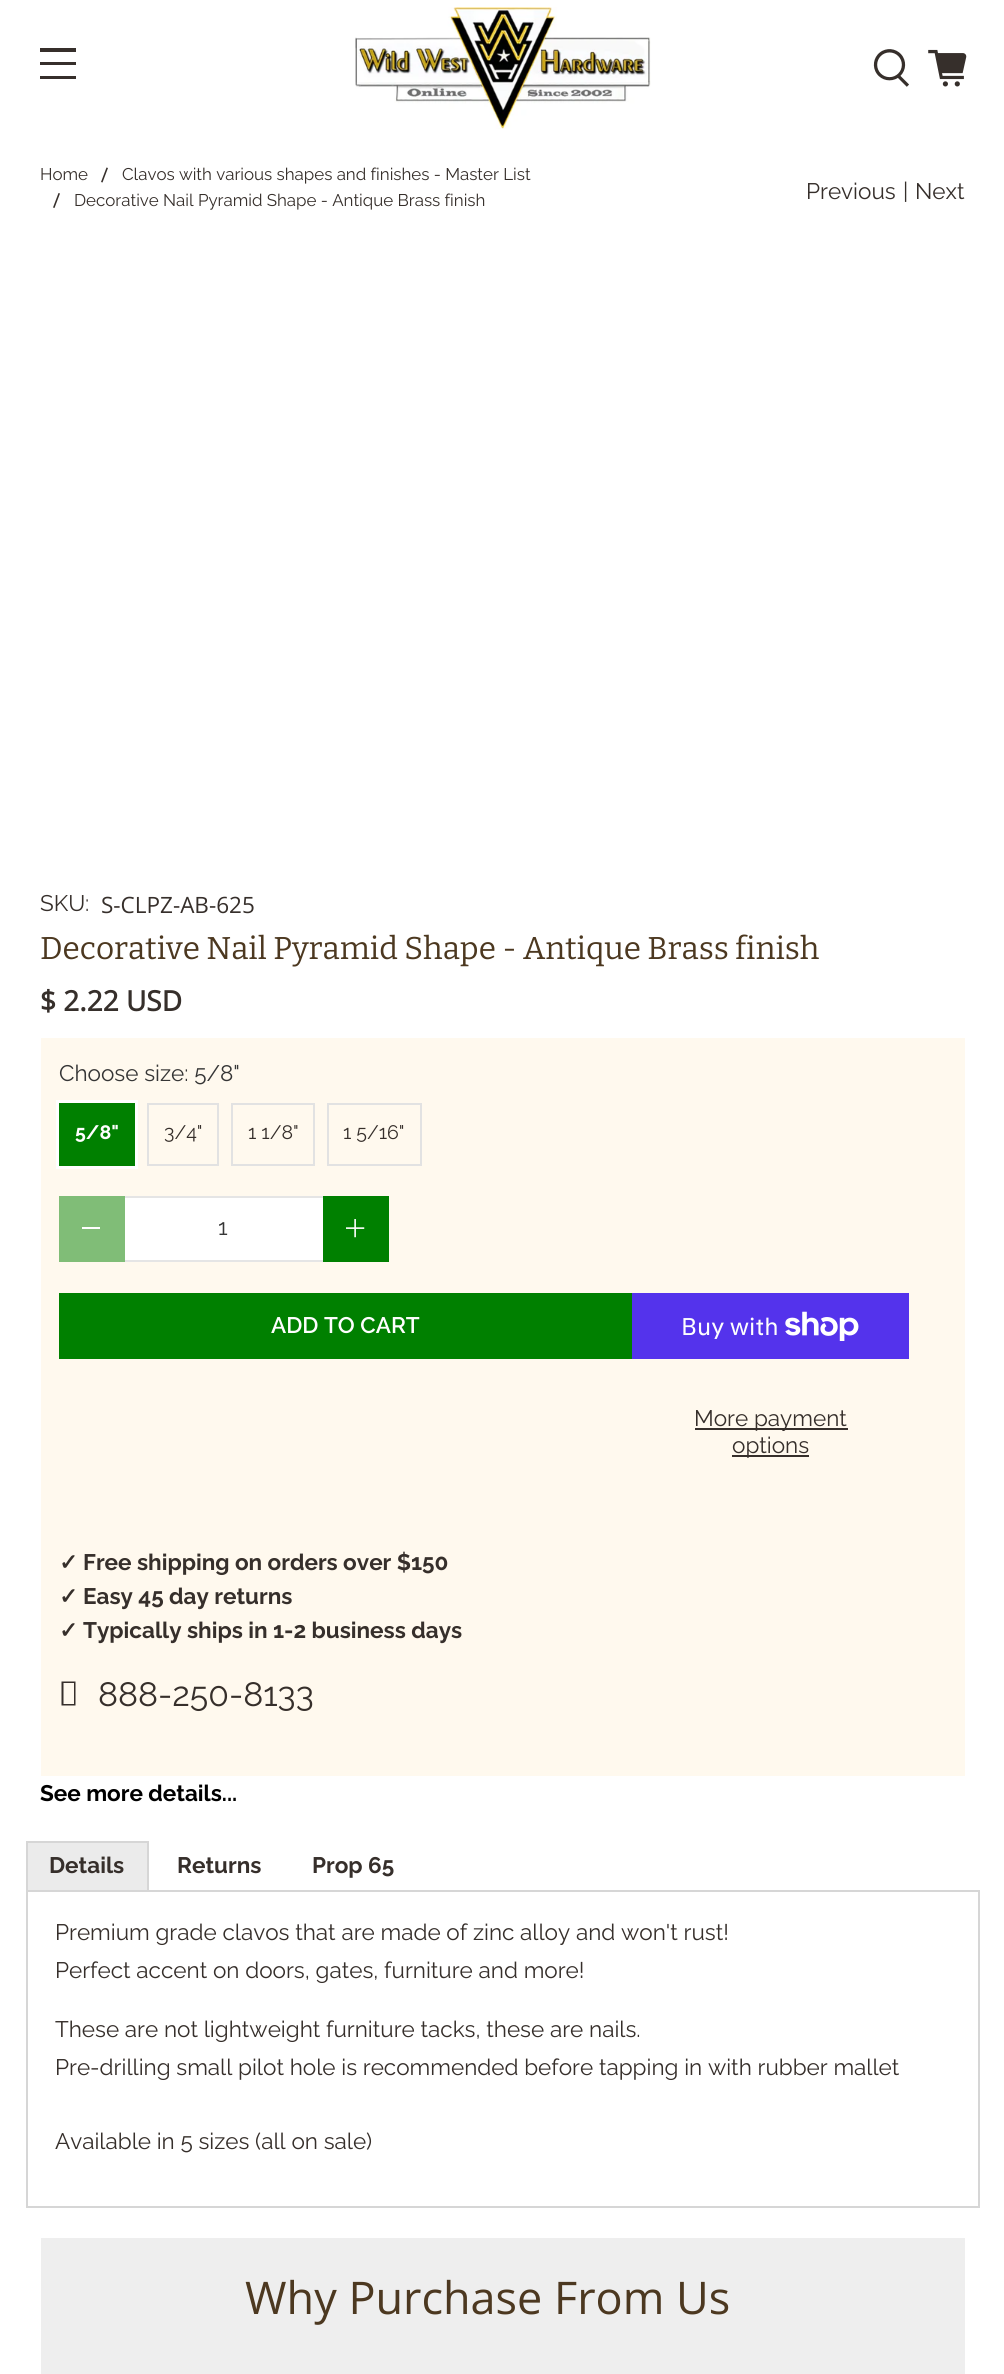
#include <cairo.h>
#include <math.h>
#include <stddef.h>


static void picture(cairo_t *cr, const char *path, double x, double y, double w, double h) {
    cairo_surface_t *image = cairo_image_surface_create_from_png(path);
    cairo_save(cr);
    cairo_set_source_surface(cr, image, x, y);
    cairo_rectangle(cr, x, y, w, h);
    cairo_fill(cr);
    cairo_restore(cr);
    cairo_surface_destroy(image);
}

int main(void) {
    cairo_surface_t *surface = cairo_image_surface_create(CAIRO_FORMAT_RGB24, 1004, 2374);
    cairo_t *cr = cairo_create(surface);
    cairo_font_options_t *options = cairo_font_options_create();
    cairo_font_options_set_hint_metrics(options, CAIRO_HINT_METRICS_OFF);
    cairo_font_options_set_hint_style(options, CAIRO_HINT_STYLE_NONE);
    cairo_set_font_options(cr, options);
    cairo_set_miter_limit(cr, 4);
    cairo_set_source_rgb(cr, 1, 1, 1);
    cairo_paint(cr);
    cairo_set_source_rgb(cr, 0.212, 0.184, 0.169);
    cairo_rectangle(cr, 40, 48, 36, 4);
    cairo_fill(cr);
    cairo_rectangle(cr, 40, 62, 36, 3);
    cairo_fill(cr);
    cairo_rectangle(cr, 40, 76, 36, 3);
    cairo_fill(cr);
    picture(cr, "img1.png", 355, 7, 296, 122);
    picture(cr, "img2.png", 873, 49, 36, 38);
    picture(cr, "img3.png", 928, 49, 39, 38);
    cairo_select_font_face(cr, "Raleway", CAIRO_FONT_SLANT_NORMAL, CAIRO_FONT_WEIGHT_NORMAL);
    cairo_set_font_size(cr, 16.9);
    cairo_move_to(cr, 40, 180);
    cairo_show_text(cr, "Home");
    cairo_new_path(cr);
    cairo_move_to(cr, 101, 182);
    cairo_line_to(cr, 106.5, 167.5);
    cairo_line_to(cr, 108, 168);
    cairo_line_to(cr, 102.5, 182.5);
    cairo_close_path(cr);
    cairo_move_to(cr, 53, 207.5);
    cairo_line_to(cr, 58.5, 193);
    cairo_line_to(cr, 60, 193.5);
    cairo_line_to(cr, 54.5, 208);
    cairo_close_path(cr);
    cairo_fill(cr);
    cairo_move_to(cr, 122, 180);
    cairo_show_text(cr, "Clavos with various shapes and finishes - Master List");
    cairo_move_to(cr, 74, 206);
    cairo_show_text(cr, "Decorative Nail Pyramid Shape - Antique Brass finish");
    cairo_set_font_size(cr, 22.5);
    cairo_move_to(cr, 806, 199);
    cairo_show_text(cr, "Previous");
    cairo_move_to(cr, 903, 199);
    cairo_show_text(cr, "|");
    cairo_move_to(cr, 915, 199);
    cairo_show_text(cr, "Next");
    cairo_move_to(cr, 40, 911);
    cairo_show_text(cr, "SKU:");
    cairo_select_font_face(cr, "Open Sans", CAIRO_FONT_SLANT_NORMAL, CAIRO_FONT_WEIGHT_NORMAL);
    cairo_move_to(cr, 101, 913);
    cairo_show_text(cr, "S-CLPZ-AB-625");
    cairo_select_font_face(cr, "Bitter", CAIRO_FONT_SLANT_NORMAL, CAIRO_FONT_WEIGHT_NORMAL);
    cairo_set_font_size(cr, 31.5);
    cairo_set_source_rgb(cr, 0.298, 0.22, 0.125);
    cairo_move_to(cr, 40, 959);
    cairo_show_text(cr, "Decorative Nail Pyramid Shape - Antique Brass finish");
    cairo_select_font_face(cr, "Open Sans", CAIRO_FONT_SLANT_NORMAL, CAIRO_FONT_WEIGHT_BOLD);
    cairo_set_font_size(cr, 28);
    cairo_set_source_rgb(cr, 0.212, 0.184, 0.169);
    cairo_move_to(cr, 40, 1011);
    cairo_show_text(cr, "$ 2.22 USD");
    cairo_set_source_rgb(cr, 1, 0.976, 0.933);
    cairo_rectangle(cr, 41, 1038, 924, 738);
    cairo_fill(cr);
    cairo_select_font_face(cr, "Raleway", CAIRO_FONT_SLANT_NORMAL, CAIRO_FONT_WEIGHT_NORMAL);
    cairo_set_font_size(cr, 22.5);
    cairo_set_source_rgb(cr, 0.212, 0.212, 0.212);
    cairo_move_to(cr, 59, 1081);
    cairo_show_text(cr, "Choose size: 5/8\"");
    cairo_rectangle(cr, 57.5, 1101.5, 79, 66);
    cairo_set_source_rgb(cr, 1, 1, 1);
    cairo_set_line_width(cr, 3);
    cairo_stroke(cr);
    cairo_set_source_rgb(cr, 0, 0.502, 0);
    cairo_rectangle(cr, 59, 1103, 76, 63);
    cairo_fill(cr);
    cairo_select_font_face(cr, "Raleway", CAIRO_FONT_SLANT_NORMAL, CAIRO_FONT_WEIGHT_BOLD);
    cairo_set_font_size(cr, 19.5);
    cairo_set_source_rgb(cr, 0.996, 0.996, 0.996);
    cairo_move_to(cr, 75, 1139);
    cairo_show_text(cr, "5/8\"");
    cairo_rectangle(cr, 148, 1104, 70, 61);
    cairo_set_source_rgb(cr, 0.886, 0.886, 0.886);
    cairo_set_line_width(cr, 2);
    cairo_stroke(cr);
    cairo_select_font_face(cr, "Raleway", CAIRO_FONT_SLANT_NORMAL, CAIRO_FONT_WEIGHT_NORMAL);
    cairo_set_source_rgb(cr, 0.212, 0.184, 0.169);
    cairo_move_to(cr, 164, 1139);
    cairo_show_text(cr, "3/4\"");
    cairo_rectangle(cr, 232, 1104, 82, 61);
    cairo_set_source_rgb(cr, 0.886, 0.886, 0.886);
    cairo_stroke(cr);
    cairo_set_source_rgb(cr, 0.212, 0.184, 0.169);
    cairo_move_to(cr, 248, 1139);
    cairo_show_text(cr, "1 1/8\"");
    cairo_rectangle(cr, 328, 1104, 93, 61);
    cairo_set_source_rgb(cr, 0.886, 0.886, 0.886);
    cairo_stroke(cr);
    cairo_set_source_rgb(cr, 0.212, 0.184, 0.169);
    cairo_move_to(cr, 343, 1139);
    cairo_show_text(cr, "1 5/16\"");
    cairo_set_source_rgb(cr, 0.502, 0.741, 0.467);
    cairo_rectangle(cr, 59, 1196, 66, 66);
    cairo_fill(cr);
    cairo_set_source_rgb(cr, 1, 1, 1);
    cairo_rectangle(cr, 82, 1227, 18, 2);
    cairo_fill(cr);
    cairo_rectangle(cr, 125, 1198, 198, 62);
    cairo_fill(cr);
    cairo_set_source_rgb(cr, 0.898, 0.898, 0.898);
    cairo_rectangle(cr, 125, 1196, 198, 2);
    cairo_fill(cr);
    cairo_rectangle(cr, 125, 1260, 198, 2);
    cairo_fill(cr);
    cairo_set_font_size(cr, 22.5);
    cairo_set_source_rgb(cr, 0.212, 0.212, 0.212);
    cairo_move_to(cr, 218, 1235);
    cairo_show_text(cr, "1");
    cairo_set_source_rgb(cr, 0, 0.502, 0);
    cairo_rectangle(cr, 323, 1196, 66, 66);
    cairo_fill(cr);
    picture(cr, "img4.png", 346, 1219, 19, 19);
    cairo_rectangle(cr, 59, 1293, 573, 66);
    cairo_fill(cr);
    cairo_select_font_face(cr, "Raleway SemiBold", CAIRO_FONT_SLANT_NORMAL, CAIRO_FONT_WEIGHT_NORMAL);
    cairo_set_source_rgb(cr, 0.996, 0.996, 0.996);
    cairo_move_to(cr, 271, 1333);
    cairo_show_text(cr, "ADD TO CART");
    cairo_set_source_rgb(cr, 0.329, 0.2, 0.922);
    cairo_rectangle(cr, 632, 1293, 277, 66);
    cairo_fill(cr);
    cairo_select_font_face(cr, "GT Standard", CAIRO_FONT_SLANT_NORMAL, CAIRO_FONT_WEIGHT_NORMAL);
    cairo_set_font_size(cr, 24);
    cairo_set_source_rgb(cr, 0.996, 0.996, 0.996);
    cairo_move_to(cr, 681, 1335);
    cairo_show_text(cr, "Buy with");
    picture(cr, "img5.png", 785, 1311, 74, 30);
    cairo_set_source_rgb(cr, 0.212, 0.184, 0.169);
    cairo_rectangle(cr, 695, 1428, 153, 2);
    cairo_fill(cr);
    cairo_select_font_face(cr, "Raleway", CAIRO_FONT_SLANT_NORMAL, CAIRO_FONT_WEIGHT_NORMAL);
    cairo_set_font_size(cr, 22.5);
    cairo_move_to(cr, 694, 1426);
    cairo_show_text(cr, "More payment");
    cairo_rectangle(cr, 732, 1455, 77, 2);
    cairo_fill(cr);
    cairo_move_to(cr, 732, 1453);
    cairo_show_text(cr, "options");
    cairo_select_font_face(cr, "DejaVu Sans", CAIRO_FONT_SLANT_NORMAL, CAIRO_FONT_WEIGHT_BOLD);
    cairo_move_to(cr, 59, 1570);
    cairo_show_text(cr, "✓");
    cairo_select_font_face(cr, "Raleway", CAIRO_FONT_SLANT_NORMAL, CAIRO_FONT_WEIGHT_BOLD);
    cairo_move_to(cr, 83, 1570);
    cairo_show_text(cr, "Free shipping on orders over $150");
    cairo_select_font_face(cr, "DejaVu Sans", CAIRO_FONT_SLANT_NORMAL, CAIRO_FONT_WEIGHT_BOLD);
    cairo_move_to(cr, 59, 1604);
    cairo_show_text(cr, "✓");
    cairo_select_font_face(cr, "Raleway", CAIRO_FONT_SLANT_NORMAL, CAIRO_FONT_WEIGHT_BOLD);
    cairo_move_to(cr, 83, 1604);
    cairo_show_text(cr, "Easy 45 day returns");
    cairo_select_font_face(cr, "DejaVu Sans", CAIRO_FONT_SLANT_NORMAL, CAIRO_FONT_WEIGHT_BOLD);
    cairo_move_to(cr, 59, 1638);
    cairo_show_text(cr, "✓");
    cairo_select_font_face(cr, "Raleway", CAIRO_FONT_SLANT_NORMAL, CAIRO_FONT_WEIGHT_BOLD);
    cairo_move_to(cr, 83, 1638);
    cairo_show_text(cr, "Typically ships in 1-2 business days");
    cairo_new_path(cr);
    cairo_move_to(cr, 61.5, 1705.5);
    cairo_line_to(cr, 61.5, 1681.5);
    cairo_line_to(cr, 75.5, 1681.5);
    cairo_line_to(cr, 75.5, 1705.5);
    cairo_close_path(cr);
    cairo_move_to(cr, 63.5, 1704);
    cairo_line_to(cr, 74, 1704);
    cairo_line_to(cr, 74, 1683);
    cairo_line_to(cr, 63.5, 1683);
    cairo_close_path(cr);
    cairo_fill(cr);
    cairo_select_font_face(cr, "Raleway", CAIRO_FONT_SLANT_NORMAL, CAIRO_FONT_WEIGHT_NORMAL);
    cairo_set_font_size(cr, 33.75);
    cairo_move_to(cr, 98, 1706);
    cairo_show_text(cr, "888-250-8133");
    cairo_select_font_face(cr, "Raleway", CAIRO_FONT_SLANT_NORMAL, CAIRO_FONT_WEIGHT_BOLD);
    cairo_set_font_size(cr, 22.5);
    cairo_set_source_rgb(cr, 0, 0, 0);
    cairo_move_to(cr, 40, 1801);
    cairo_show_text(cr, "See more details...");
    cairo_set_source_rgb(cr, 0.918, 0.918, 0.918);
    cairo_rectangle(cr, 28, 1843, 119, 47);
    cairo_fill(cr);
    cairo_set_source_rgb(cr, 0.839, 0.839, 0.839);
    cairo_rectangle(cr, 26, 1841, 123, 2);
    cairo_fill(cr);
    cairo_rectangle(cr, 147, 1841, 2, 49);
    cairo_fill(cr);
    cairo_rectangle(cr, 26, 1841, 2, 49);
    cairo_fill(cr);
    cairo_set_source_rgb(cr, 0.212, 0.184, 0.169);
    cairo_move_to(cr, 49, 1873);
    cairo_show_text(cr, "Details");
    cairo_move_to(cr, 177, 1873);
    cairo_show_text(cr, "Returns");
    cairo_move_to(cr, 312, 1873);
    cairo_show_text(cr, "Prop 65");
    cairo_rectangle(cr, 27, 1891, 952, 316);
    cairo_set_source_rgb(cr, 0.839, 0.839, 0.839);
    cairo_stroke(cr);
    cairo_select_font_face(cr, "Raleway", CAIRO_FONT_SLANT_NORMAL, CAIRO_FONT_WEIGHT_NORMAL);
    cairo_set_source_rgb(cr, 0.212, 0.184, 0.169);
    cairo_move_to(cr, 55, 1940);
    cairo_show_text(cr, "Premium grade clavos that are made of zinc alloy and won't rust!");
    cairo_move_to(cr, 55, 1978);
    cairo_show_text(cr, "Perfect accent on doors, gates, furniture and more!");
    cairo_move_to(cr, 55, 2037);
    cairo_show_text(cr, "These are not lightweight furniture tacks, these are nails.");
    cairo_move_to(cr, 55, 2075);
    cairo_show_text(cr, "Pre-drilling small pilot hole is recommended before tapping in with rubber mallet");
    cairo_move_to(cr, 55, 2149);
    cairo_show_text(cr, "Available in 5 sizes (all on sale)");
    cairo_set_source_rgb(cr, 0.933, 0.933, 0.933);
    cairo_rectangle(cr, 41, 2238, 924, 136);
    cairo_fill(cr);
    cairo_select_font_face(cr, "Open Sans", CAIRO_FONT_SLANT_NORMAL, CAIRO_FONT_WEIGHT_NORMAL);
    cairo_set_font_size(cr, 45);
    cairo_set_source_rgb(cr, 0.298, 0.22, 0.125);
    cairo_move_to(cr, 245, 2314);
    cairo_show_text(cr, "Why Purchase From Us");
    cairo_surface_write_to_png(surface, "page.png");
    cairo_font_options_destroy(options);
    cairo_destroy(cr);
    cairo_surface_destroy(surface);
    return 0;
}
